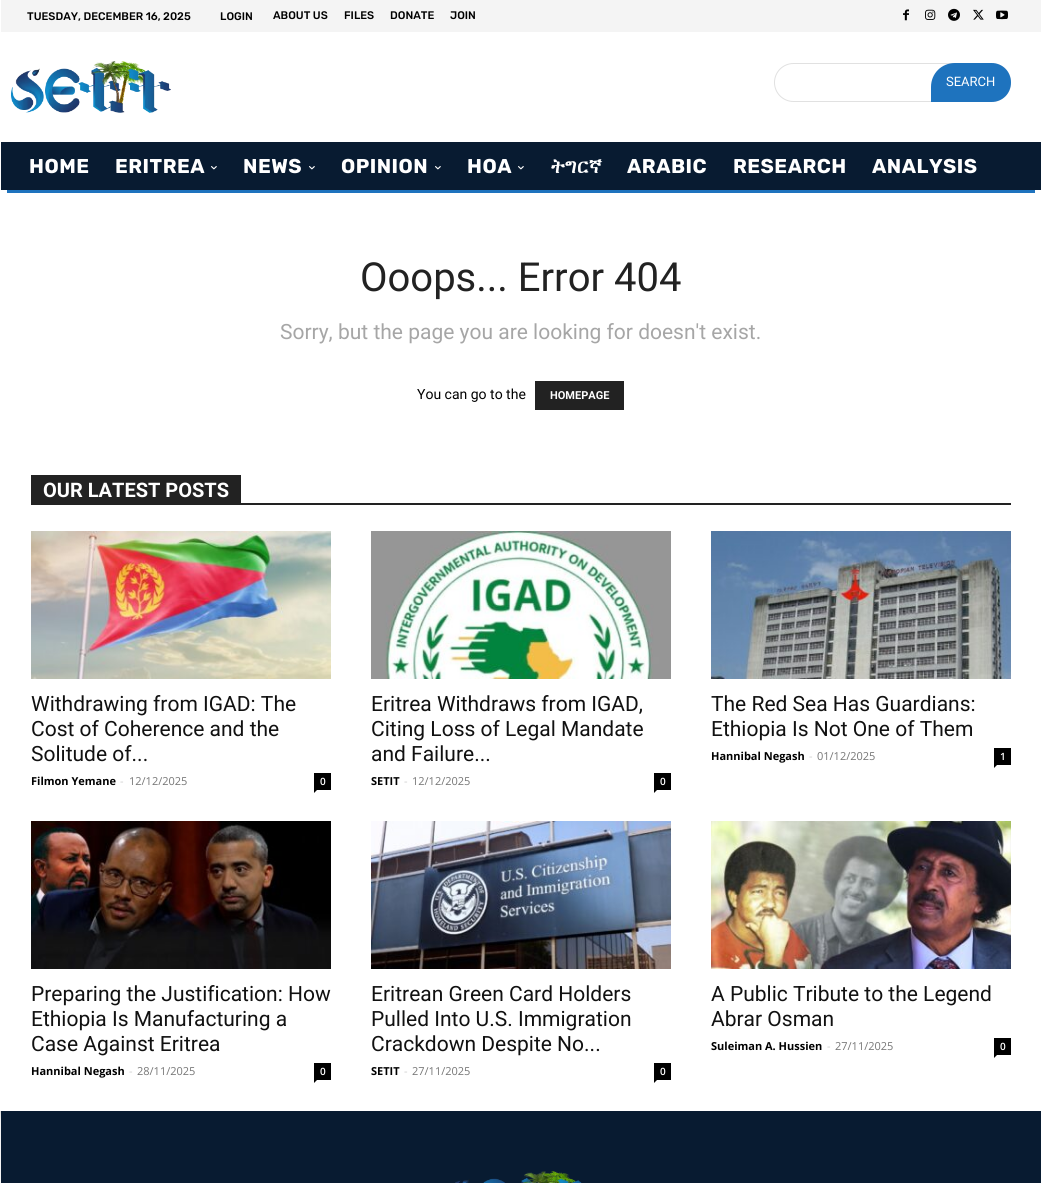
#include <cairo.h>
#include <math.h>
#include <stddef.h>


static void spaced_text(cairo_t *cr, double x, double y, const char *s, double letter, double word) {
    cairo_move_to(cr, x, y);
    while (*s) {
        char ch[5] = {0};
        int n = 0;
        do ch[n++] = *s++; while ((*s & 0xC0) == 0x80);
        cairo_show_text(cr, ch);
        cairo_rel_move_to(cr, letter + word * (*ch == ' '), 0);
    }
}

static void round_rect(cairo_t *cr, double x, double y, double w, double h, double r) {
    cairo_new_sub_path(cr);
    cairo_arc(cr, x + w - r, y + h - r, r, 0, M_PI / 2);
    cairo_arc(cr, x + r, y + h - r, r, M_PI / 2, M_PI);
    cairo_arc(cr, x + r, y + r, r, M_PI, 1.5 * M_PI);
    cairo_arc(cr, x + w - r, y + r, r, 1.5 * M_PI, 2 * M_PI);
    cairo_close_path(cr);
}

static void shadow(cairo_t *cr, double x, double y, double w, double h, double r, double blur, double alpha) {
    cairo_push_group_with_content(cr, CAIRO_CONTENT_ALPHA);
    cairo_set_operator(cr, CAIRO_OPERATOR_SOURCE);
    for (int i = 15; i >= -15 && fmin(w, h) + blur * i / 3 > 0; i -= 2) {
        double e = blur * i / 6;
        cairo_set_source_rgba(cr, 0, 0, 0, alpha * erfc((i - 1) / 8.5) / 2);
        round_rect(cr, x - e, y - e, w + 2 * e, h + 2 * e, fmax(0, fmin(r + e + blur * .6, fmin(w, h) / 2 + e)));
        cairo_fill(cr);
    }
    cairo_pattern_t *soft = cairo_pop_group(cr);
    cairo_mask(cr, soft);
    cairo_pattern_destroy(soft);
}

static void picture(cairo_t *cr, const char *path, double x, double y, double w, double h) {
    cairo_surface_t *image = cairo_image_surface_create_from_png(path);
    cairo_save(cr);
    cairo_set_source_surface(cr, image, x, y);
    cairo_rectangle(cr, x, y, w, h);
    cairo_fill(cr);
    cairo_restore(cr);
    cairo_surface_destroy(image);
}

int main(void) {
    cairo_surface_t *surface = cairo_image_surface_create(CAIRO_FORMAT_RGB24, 1041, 1183);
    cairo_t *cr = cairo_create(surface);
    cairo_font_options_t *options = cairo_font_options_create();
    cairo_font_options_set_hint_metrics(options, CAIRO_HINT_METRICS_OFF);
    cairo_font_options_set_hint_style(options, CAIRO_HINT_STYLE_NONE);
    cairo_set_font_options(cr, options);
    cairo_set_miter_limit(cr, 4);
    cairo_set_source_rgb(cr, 0.957, 0.957, 0.957);
    cairo_paint(cr);
    cairo_set_source_rgb(cr, 0, 0, 0);
    shadow(cr, -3, 200, 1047, 914, 0, 5, 0.12);
    cairo_set_source_rgb(cr, 1, 1, 1);
    cairo_rectangle(cr, 0, 0, 1041, 1111);
    cairo_fill(cr);
    cairo_set_source_rgb(cr, 0.957, 0.957, 0.957);
    cairo_rectangle(cr, 1, 0, 1040, 32);
    cairo_fill(cr);
    cairo_select_font_face(cr, "Rubik Medium", CAIRO_FONT_SLANT_NORMAL, CAIRO_FONT_WEIGHT_NORMAL);
    cairo_set_font_size(cr, 11);
    cairo_set_source_rgb(cr, 0, 0, 0);
    cairo_move_to(cr, 27, 20);
    cairo_show_text(cr, "TUESDAY, DECEMBER 16, 2025");
    cairo_move_to(cr, 220, 20);
    cairo_show_text(cr, "LOGIN");
    cairo_move_to(cr, 273, 19);
    cairo_show_text(cr, "ABOUT US");
    cairo_move_to(cr, 344, 19);
    cairo_show_text(cr, "FILES");
    cairo_move_to(cr, 390, 19);
    cairo_show_text(cr, "DONATE");
    cairo_move_to(cr, 450, 19);
    cairo_show_text(cr, "JOIN");
    picture(cr, "img1.png", 903, 9, 6, 12);
    picture(cr, "img2.png", 925, 9, 11, 11);
    picture(cr, "img3.png", 948, 8, 12, 13);
    picture(cr, "img4.png", 973, 9, 11, 11);
    picture(cr, "img5.png", 996, 10, 12, 10);
    picture(cr, "img6.png", 11, 61, 160, 52);
    round_rect(cr, 774.5, 63.5, 236, 38, 19);
    cairo_set_source_rgb(cr, 0.882, 0.882, 0.882);
    cairo_set_line_width(cr, 1);
    cairo_stroke(cr);
    cairo_set_source_rgb(cr, 0.118, 0.451, 0.745);
    cairo_new_path(cr);
    cairo_move_to(cr, 955, 63);
    cairo_line_to(cr, 991.5, 63);
    cairo_curve_to(cr, 1002.5, 63, 1011, 71.5, 1011, 82.5);
    cairo_curve_to(cr, 1011, 93.5, 1002.5, 102, 991.5, 102);
    cairo_line_to(cr, 931, 102);
    cairo_line_to(cr, 931, 87);
    cairo_curve_to(cr, 931, 73.5, 941.5, 63, 955, 63);
    cairo_close_path(cr);
    cairo_fill(cr);
    cairo_select_font_face(cr, "Roboto", CAIRO_FONT_SLANT_NORMAL, CAIRO_FONT_WEIGHT_NORMAL);
    cairo_set_font_size(cr, 13);
    cairo_set_source_rgb(cr, 1, 1, 1);
    cairo_move_to(cr, 946, 86);
    cairo_show_text(cr, "SEARCH");
    cairo_set_source_rgb(cr, 0.035, 0.106, 0.192);
    cairo_rectangle(cr, 1, 142, 1040, 48);
    cairo_fill(cr);
    cairo_select_font_face(cr, "Rubik", CAIRO_FONT_SLANT_NORMAL, CAIRO_FONT_WEIGHT_BOLD);
    cairo_set_font_size(cr, 20);
    cairo_set_source_rgb(cr, 1, 1, 1);
    spaced_text(cr, 29, 173, "HOME", 0.5, 0);
    spaced_text(cr, 115, 173, "ERITREA", 0.5, 0);
    picture(cr, "img7.png", 211, 166, 6, 4);
    spaced_text(cr, 243, 173, "NEWS", 0.5, 0);
    picture(cr, "img7.png", 309, 166, 6, 4);
    spaced_text(cr, 341, 173, "OPINION", 0.5, 0);
    picture(cr, "img7.png", 435, 166, 6, 4);
    spaced_text(cr, 467, 173, "HOA", 0.5, 0);
    picture(cr, "img7.png", 518, 166, 6, 4);
    cairo_select_font_face(cr, "FreeSerif", CAIRO_FONT_SLANT_NORMAL, CAIRO_FONT_WEIGHT_BOLD);
    spaced_text(cr, 551, 173, "ትግርኛ", 0.5, 0);
    cairo_select_font_face(cr, "Rubik", CAIRO_FONT_SLANT_NORMAL, CAIRO_FONT_WEIGHT_BOLD);
    spaced_text(cr, 627, 173, "ARABIC", 0.5, 0);
    spaced_text(cr, 733, 173, "RESEARCH", 0.5, 0);
    spaced_text(cr, 872, 173, "ANALYSIS", 0.5, 0);
    cairo_set_source_rgb(cr, 0.118, 0.451, 0.745);
    cairo_rectangle(cr, 7, 190, 1028, 3);
    cairo_fill(cr);
    cairo_select_font_face(cr, "Roboto", CAIRO_FONT_SLANT_NORMAL, CAIRO_FONT_WEIGHT_NORMAL);
    cairo_set_font_size(cr, 40);
    cairo_set_source_rgb(cr, 0.133, 0.133, 0.133);
    cairo_move_to(cr, 360, 291);
    cairo_show_text(cr, "Ooops... Error 404");
    cairo_set_font_size(cr, 21);
    cairo_set_source_rgb(cr, 0.651, 0.651, 0.651);
    cairo_move_to(cr, 280, 339);
    cairo_show_text(cr, "Sorry, but the page you are looking for doesn't exist.");
    cairo_set_font_size(cr, 14);
    cairo_set_source_rgb(cr, 0, 0, 0);
    cairo_move_to(cr, 417, 399);
    cairo_show_text(cr, "You can go to the");
    cairo_set_source_rgb(cr, 0.133, 0.133, 0.133);
    cairo_rectangle(cr, 535, 381, 89, 29);
    cairo_fill(cr);
    cairo_select_font_face(cr, "Roboto", CAIRO_FONT_SLANT_NORMAL, CAIRO_FONT_WEIGHT_BOLD);
    cairo_set_font_size(cr, 11);
    cairo_set_source_rgb(cr, 1, 1, 1);
    cairo_move_to(cr, 550, 399);
    cairo_show_text(cr, "HOMEPAGE");
    cairo_set_source_rgb(cr, 0.133, 0.133, 0.133);
    cairo_rectangle(cr, 31, 503, 980, 2);
    cairo_fill(cr);
    cairo_rectangle(cr, 31, 475, 210, 28);
    cairo_fill(cr);
    cairo_set_font_size(cr, 20);
    cairo_set_source_rgb(cr, 1, 1, 1);
    cairo_move_to(cr, 43, 497);
    cairo_show_text(cr, "OUR LATEST POSTS");
    picture(cr, "img8.png", 31, 531, 300, 148);
    cairo_select_font_face(cr, "Roboto", CAIRO_FONT_SLANT_NORMAL, CAIRO_FONT_WEIGHT_NORMAL);
    cairo_set_font_size(cr, 21);
    cairo_set_source_rgb(cr, 0.067, 0.067, 0.067);
    cairo_move_to(cr, 31, 711);
    cairo_show_text(cr, "Withdrawing from IGAD: The");
    cairo_move_to(cr, 31, 736);
    cairo_show_text(cr, "Cost of Coherence and the");
    cairo_move_to(cr, 31, 761);
    cairo_show_text(cr, "Solitude of...");
    cairo_select_font_face(cr, "Open Sans", CAIRO_FONT_SLANT_NORMAL, CAIRO_FONT_WEIGHT_BOLD);
    cairo_set_font_size(cr, 11);
    cairo_set_source_rgb(cr, 0, 0, 0);
    cairo_move_to(cr, 31, 785);
    cairo_show_text(cr, "Filmon Yemane");
    cairo_select_font_face(cr, "Open Sans", CAIRO_FONT_SLANT_NORMAL, CAIRO_FONT_WEIGHT_NORMAL);
    cairo_set_source_rgb(cr, 0.8, 0.8, 0.8);
    cairo_move_to(cr, 120, 785);
    cairo_show_text(cr, "-");
    cairo_set_source_rgb(cr, 0.463, 0.463, 0.463);
    cairo_move_to(cr, 129, 785);
    cairo_show_text(cr, "12/12/2025");
    cairo_set_source_rgb(cr, 0, 0, 0);
    cairo_rectangle(cr, 314, 773, 17, 17);
    cairo_fill(cr);
    cairo_select_font_face(cr, "Open Sans SemiBold", CAIRO_FONT_SLANT_NORMAL, CAIRO_FONT_WEIGHT_NORMAL);
    cairo_set_font_size(cr, 10);
    cairo_set_source_rgb(cr, 1, 1, 1);
    cairo_move_to(cr, 320, 785);
    cairo_show_text(cr, "0");
    cairo_set_source_rgb(cr, 0, 0, 0);
    cairo_new_path(cr);
    cairo_move_to(cr, 314, 790);
    cairo_line_to(cr, 317, 790);
    cairo_line_to(cr, 314, 793);
    cairo_close_path(cr);
    cairo_fill(cr);
    picture(cr, "img9.png", 371, 531, 300, 148);
    cairo_select_font_face(cr, "Roboto", CAIRO_FONT_SLANT_NORMAL, CAIRO_FONT_WEIGHT_NORMAL);
    cairo_set_font_size(cr, 21);
    cairo_set_source_rgb(cr, 0.067, 0.067, 0.067);
    cairo_move_to(cr, 371, 711);
    cairo_show_text(cr, "Eritrea Withdraws from IGAD,");
    cairo_move_to(cr, 371, 736);
    cairo_show_text(cr, "Citing Loss of Legal Mandate");
    cairo_move_to(cr, 371, 761);
    cairo_show_text(cr, "and Failure...");
    cairo_select_font_face(cr, "Open Sans", CAIRO_FONT_SLANT_NORMAL, CAIRO_FONT_WEIGHT_BOLD);
    cairo_set_font_size(cr, 11);
    cairo_set_source_rgb(cr, 0, 0, 0);
    cairo_move_to(cr, 371, 785);
    cairo_show_text(cr, "SETIT");
    cairo_select_font_face(cr, "Open Sans", CAIRO_FONT_SLANT_NORMAL, CAIRO_FONT_WEIGHT_NORMAL);
    cairo_set_source_rgb(cr, 0.8, 0.8, 0.8);
    cairo_move_to(cr, 404, 785);
    cairo_show_text(cr, "-");
    cairo_set_source_rgb(cr, 0.463, 0.463, 0.463);
    cairo_move_to(cr, 412, 785);
    cairo_show_text(cr, "12/12/2025");
    cairo_set_source_rgb(cr, 0, 0, 0);
    cairo_rectangle(cr, 654, 773, 17, 17);
    cairo_fill(cr);
    cairo_select_font_face(cr, "Open Sans SemiBold", CAIRO_FONT_SLANT_NORMAL, CAIRO_FONT_WEIGHT_NORMAL);
    cairo_set_font_size(cr, 10);
    cairo_set_source_rgb(cr, 1, 1, 1);
    cairo_move_to(cr, 660, 785);
    cairo_show_text(cr, "0");
    cairo_set_source_rgb(cr, 0, 0, 0);
    cairo_new_path(cr);
    cairo_move_to(cr, 654, 790);
    cairo_line_to(cr, 657, 790);
    cairo_line_to(cr, 654, 793);
    cairo_close_path(cr);
    cairo_fill(cr);
    picture(cr, "img10.png", 711, 531, 300, 148);
    cairo_select_font_face(cr, "Roboto", CAIRO_FONT_SLANT_NORMAL, CAIRO_FONT_WEIGHT_NORMAL);
    cairo_set_font_size(cr, 21);
    cairo_set_source_rgb(cr, 0.067, 0.067, 0.067);
    cairo_move_to(cr, 711, 711);
    cairo_show_text(cr, "The Red Sea Has Guardians:");
    cairo_move_to(cr, 711, 736);
    cairo_show_text(cr, "Ethiopia Is Not One of Them");
    cairo_select_font_face(cr, "Open Sans", CAIRO_FONT_SLANT_NORMAL, CAIRO_FONT_WEIGHT_BOLD);
    cairo_set_font_size(cr, 11);
    cairo_set_source_rgb(cr, 0, 0, 0);
    cairo_move_to(cr, 711, 760);
    cairo_show_text(cr, "Hannibal Negash");
    cairo_select_font_face(cr, "Open Sans", CAIRO_FONT_SLANT_NORMAL, CAIRO_FONT_WEIGHT_NORMAL);
    cairo_set_source_rgb(cr, 0.8, 0.8, 0.8);
    cairo_move_to(cr, 809, 760);
    cairo_show_text(cr, "-");
    cairo_set_source_rgb(cr, 0.463, 0.463, 0.463);
    cairo_move_to(cr, 817, 760);
    cairo_show_text(cr, "01/12/2025");
    cairo_set_source_rgb(cr, 0, 0, 0);
    cairo_rectangle(cr, 994, 748, 17, 17);
    cairo_fill(cr);
    cairo_select_font_face(cr, "Open Sans SemiBold", CAIRO_FONT_SLANT_NORMAL, CAIRO_FONT_WEIGHT_NORMAL);
    cairo_set_font_size(cr, 10);
    cairo_set_source_rgb(cr, 1, 1, 1);
    cairo_move_to(cr, 1000, 760);
    cairo_show_text(cr, "1");
    cairo_set_source_rgb(cr, 0, 0, 0);
    cairo_new_path(cr);
    cairo_move_to(cr, 994, 765);
    cairo_line_to(cr, 997, 765);
    cairo_line_to(cr, 994, 768);
    cairo_close_path(cr);
    cairo_fill(cr);
    picture(cr, "img11.png", 31, 821, 300, 148);
    cairo_select_font_face(cr, "Roboto", CAIRO_FONT_SLANT_NORMAL, CAIRO_FONT_WEIGHT_NORMAL);
    cairo_set_font_size(cr, 21);
    cairo_set_source_rgb(cr, 0.067, 0.067, 0.067);
    cairo_move_to(cr, 31, 1001);
    cairo_show_text(cr, "Preparing the Justification: How");
    cairo_move_to(cr, 31, 1026);
    cairo_show_text(cr, "Ethiopia Is Manufacturing a");
    cairo_move_to(cr, 31, 1051);
    cairo_show_text(cr, "Case Against Eritrea");
    cairo_select_font_face(cr, "Open Sans", CAIRO_FONT_SLANT_NORMAL, CAIRO_FONT_WEIGHT_BOLD);
    cairo_set_font_size(cr, 11);
    cairo_set_source_rgb(cr, 0, 0, 0);
    cairo_move_to(cr, 31, 1075);
    cairo_show_text(cr, "Hannibal Negash");
    cairo_select_font_face(cr, "Open Sans", CAIRO_FONT_SLANT_NORMAL, CAIRO_FONT_WEIGHT_NORMAL);
    cairo_set_source_rgb(cr, 0.8, 0.8, 0.8);
    cairo_move_to(cr, 129, 1075);
    cairo_show_text(cr, "-");
    cairo_set_source_rgb(cr, 0.463, 0.463, 0.463);
    cairo_move_to(cr, 137, 1075);
    cairo_show_text(cr, "28/11/2025");
    cairo_set_source_rgb(cr, 0, 0, 0);
    cairo_rectangle(cr, 314, 1063, 17, 17);
    cairo_fill(cr);
    cairo_select_font_face(cr, "Open Sans SemiBold", CAIRO_FONT_SLANT_NORMAL, CAIRO_FONT_WEIGHT_NORMAL);
    cairo_set_font_size(cr, 10);
    cairo_set_source_rgb(cr, 1, 1, 1);
    cairo_move_to(cr, 320, 1075);
    cairo_show_text(cr, "0");
    cairo_set_source_rgb(cr, 0, 0, 0);
    cairo_new_path(cr);
    cairo_move_to(cr, 314, 1080);
    cairo_line_to(cr, 317, 1080);
    cairo_line_to(cr, 314, 1083);
    cairo_close_path(cr);
    cairo_fill(cr);
    picture(cr, "img12.png", 371, 821, 300, 148);
    cairo_select_font_face(cr, "Roboto", CAIRO_FONT_SLANT_NORMAL, CAIRO_FONT_WEIGHT_NORMAL);
    cairo_set_font_size(cr, 21);
    cairo_set_source_rgb(cr, 0.067, 0.067, 0.067);
    cairo_move_to(cr, 371, 1001);
    cairo_show_text(cr, "Eritrean Green Card Holders");
    cairo_move_to(cr, 371, 1026);
    cairo_show_text(cr, "Pulled Into U.S. Immigration");
    cairo_move_to(cr, 371, 1051);
    cairo_show_text(cr, "Crackdown Despite No...");
    cairo_select_font_face(cr, "Open Sans", CAIRO_FONT_SLANT_NORMAL, CAIRO_FONT_WEIGHT_BOLD);
    cairo_set_font_size(cr, 11);
    cairo_set_source_rgb(cr, 0, 0, 0);
    cairo_move_to(cr, 371, 1075);
    cairo_show_text(cr, "SETIT");
    cairo_select_font_face(cr, "Open Sans", CAIRO_FONT_SLANT_NORMAL, CAIRO_FONT_WEIGHT_NORMAL);
    cairo_set_source_rgb(cr, 0.8, 0.8, 0.8);
    cairo_move_to(cr, 404, 1075);
    cairo_show_text(cr, "-");
    cairo_set_source_rgb(cr, 0.463, 0.463, 0.463);
    cairo_move_to(cr, 412, 1075);
    cairo_show_text(cr, "27/11/2025");
    cairo_set_source_rgb(cr, 0, 0, 0);
    cairo_rectangle(cr, 654, 1063, 17, 17);
    cairo_fill(cr);
    cairo_select_font_face(cr, "Open Sans SemiBold", CAIRO_FONT_SLANT_NORMAL, CAIRO_FONT_WEIGHT_NORMAL);
    cairo_set_font_size(cr, 10);
    cairo_set_source_rgb(cr, 1, 1, 1);
    cairo_move_to(cr, 660, 1075);
    cairo_show_text(cr, "0");
    cairo_set_source_rgb(cr, 0, 0, 0);
    cairo_new_path(cr);
    cairo_move_to(cr, 654, 1080);
    cairo_line_to(cr, 657, 1080);
    cairo_line_to(cr, 654, 1083);
    cairo_close_path(cr);
    cairo_fill(cr);
    picture(cr, "img13.png", 711, 821, 300, 148);
    cairo_select_font_face(cr, "Roboto", CAIRO_FONT_SLANT_NORMAL, CAIRO_FONT_WEIGHT_NORMAL);
    cairo_set_font_size(cr, 21);
    cairo_set_source_rgb(cr, 0.067, 0.067, 0.067);
    cairo_move_to(cr, 711, 1001);
    cairo_show_text(cr, "A Public Tribute to the Legend");
    cairo_move_to(cr, 711, 1026);
    cairo_show_text(cr, "Abrar Osman");
    cairo_select_font_face(cr, "Open Sans", CAIRO_FONT_SLANT_NORMAL, CAIRO_FONT_WEIGHT_BOLD);
    cairo_set_font_size(cr, 11);
    cairo_set_source_rgb(cr, 0, 0, 0);
    cairo_move_to(cr, 711, 1050);
    cairo_show_text(cr, "Suleiman A. Hussien");
    cairo_select_font_face(cr, "Open Sans", CAIRO_FONT_SLANT_NORMAL, CAIRO_FONT_WEIGHT_NORMAL);
    cairo_set_source_rgb(cr, 0.8, 0.8, 0.8);
    cairo_move_to(cr, 827, 1050);
    cairo_show_text(cr, "-");
    cairo_set_source_rgb(cr, 0.463, 0.463, 0.463);
    cairo_move_to(cr, 835, 1050);
    cairo_show_text(cr, "27/11/2025");
    cairo_set_source_rgb(cr, 0, 0, 0);
    cairo_rectangle(cr, 994, 1038, 17, 17);
    cairo_fill(cr);
    cairo_select_font_face(cr, "Open Sans SemiBold", CAIRO_FONT_SLANT_NORMAL, CAIRO_FONT_WEIGHT_NORMAL);
    cairo_set_font_size(cr, 10);
    cairo_set_source_rgb(cr, 1, 1, 1);
    cairo_move_to(cr, 1000, 1050);
    cairo_show_text(cr, "0");
    cairo_set_source_rgb(cr, 0, 0, 0);
    cairo_new_path(cr);
    cairo_move_to(cr, 994, 1055);
    cairo_line_to(cr, 997, 1055);
    cairo_line_to(cr, 994, 1058);
    cairo_close_path(cr);
    cairo_fill(cr);
    cairo_set_source_rgb(cr, 0.035, 0.106, 0.192);
    cairo_rectangle(cr, 1, 1111, 1040, 72);
    cairo_fill(cr);
    picture(cr, "img14.png", 455, 1171, 127, 12);
    cairo_surface_write_to_png(surface, "page.png");
    cairo_font_options_destroy(options);
    cairo_destroy(cr);
    cairo_surface_destroy(surface);
    return 0;
}
